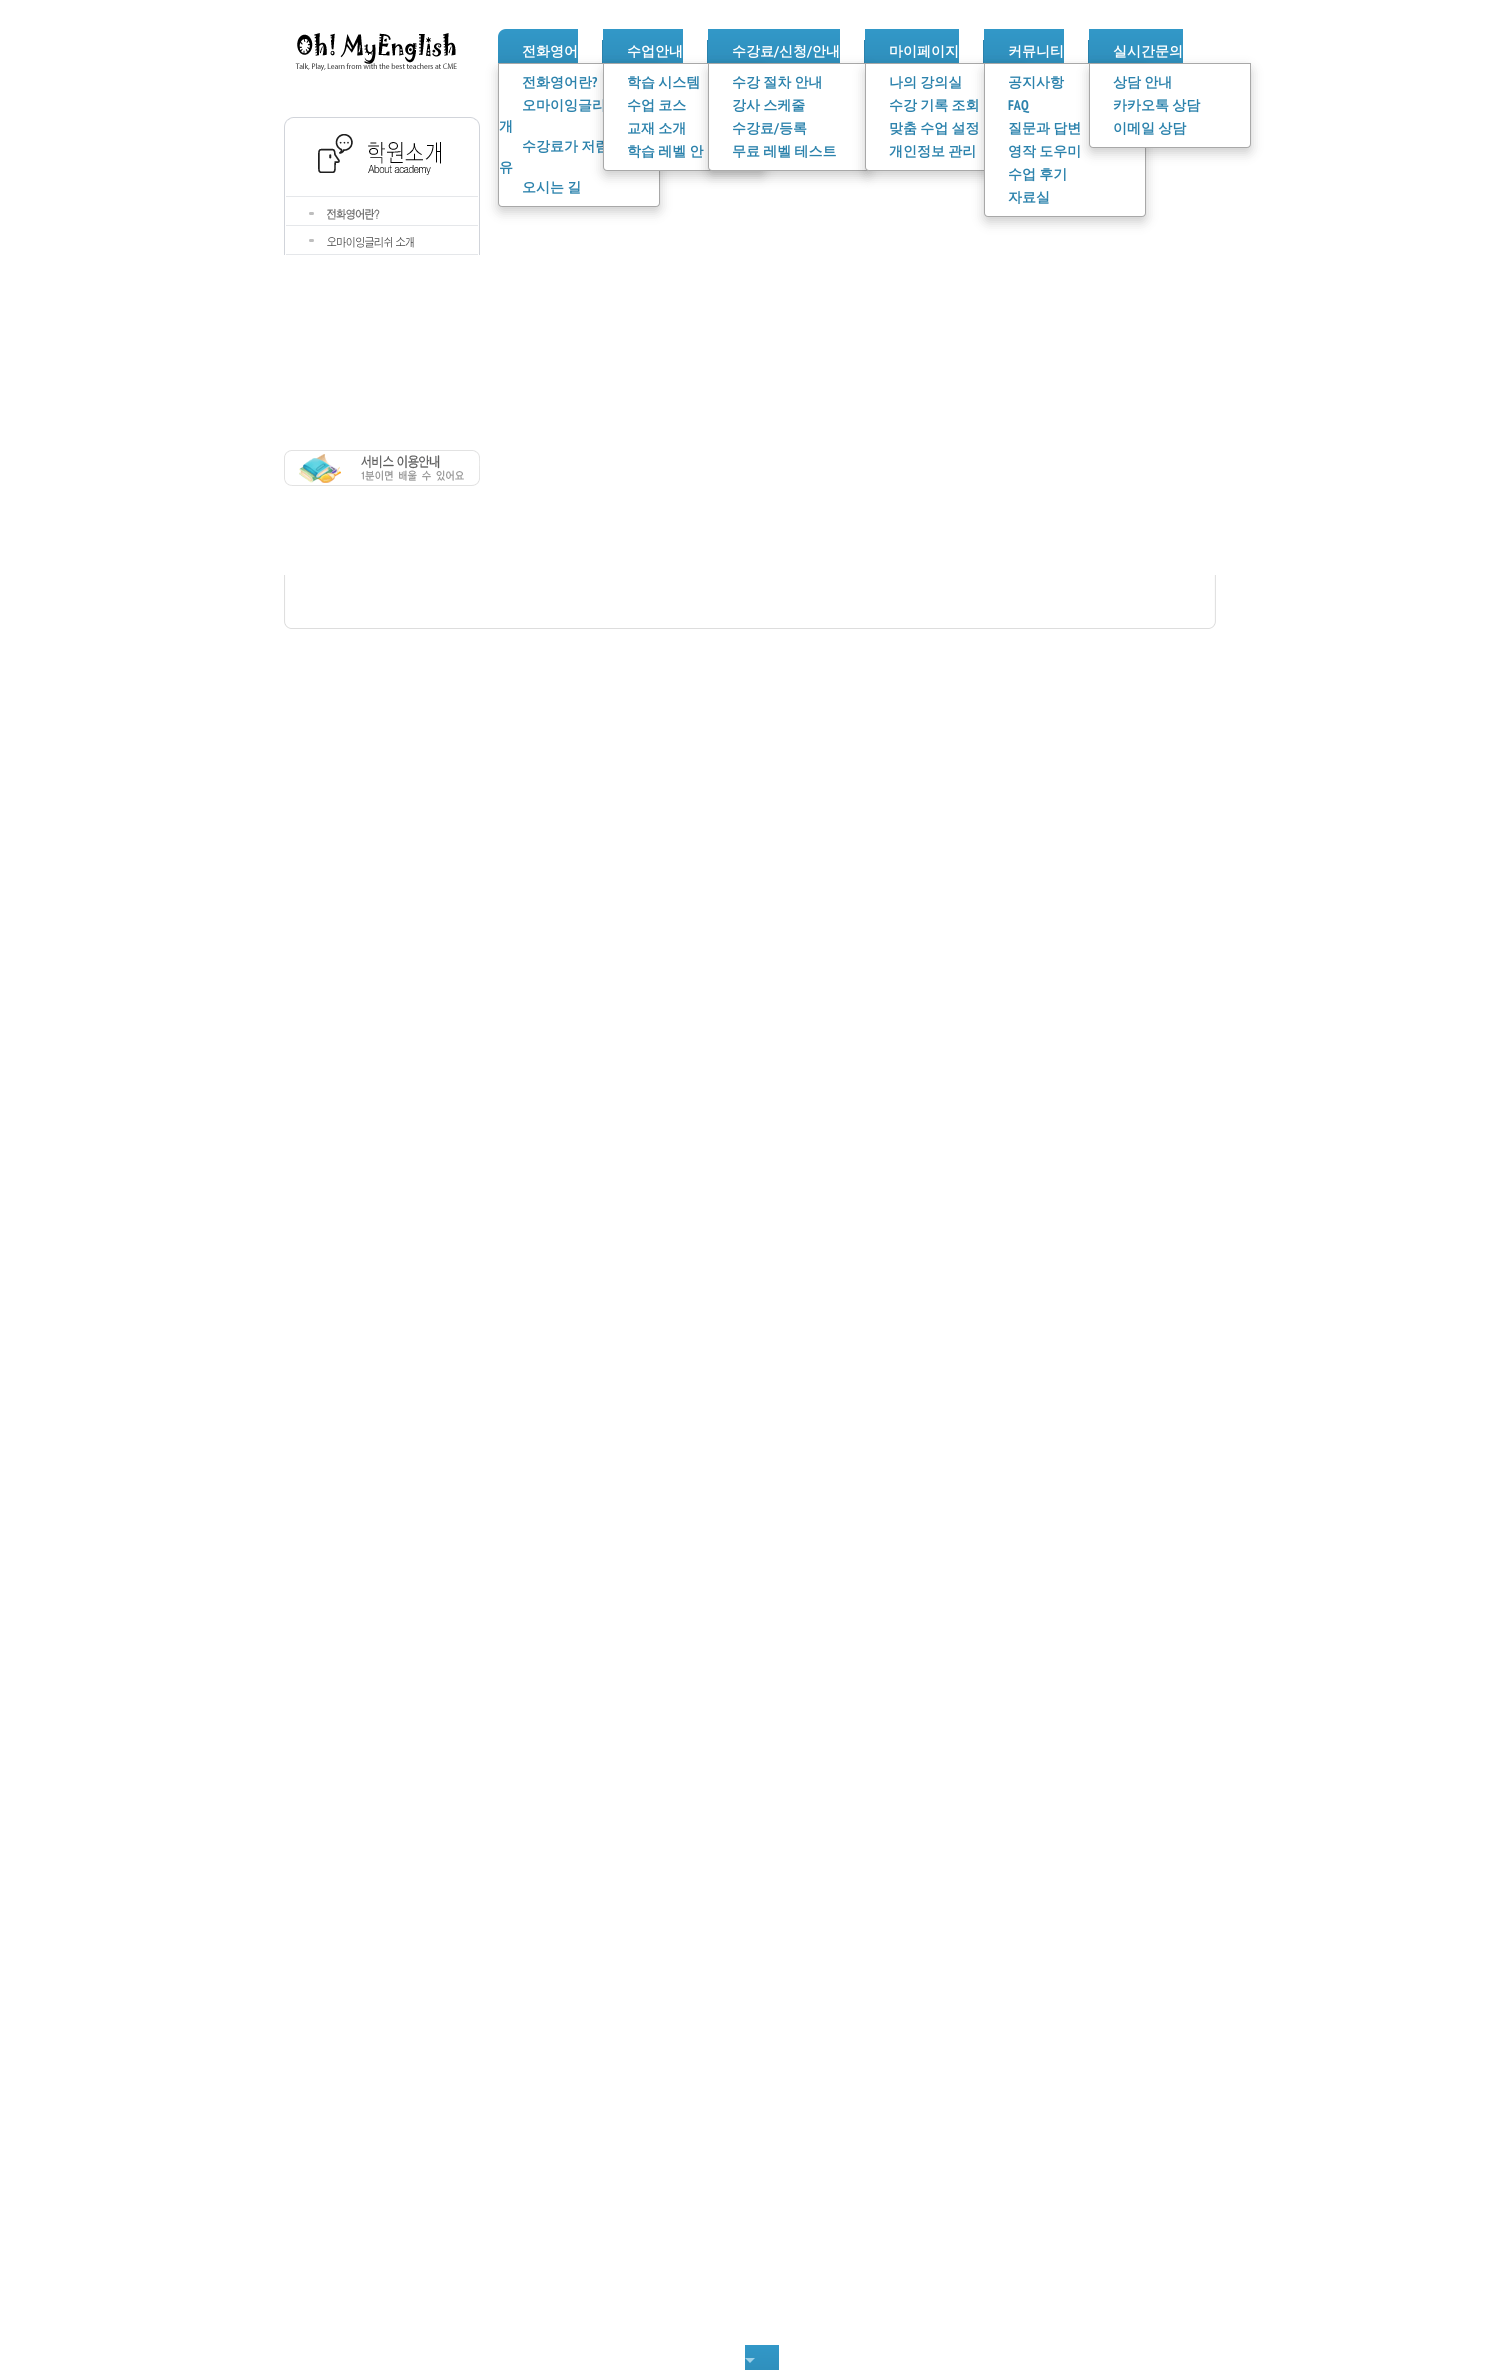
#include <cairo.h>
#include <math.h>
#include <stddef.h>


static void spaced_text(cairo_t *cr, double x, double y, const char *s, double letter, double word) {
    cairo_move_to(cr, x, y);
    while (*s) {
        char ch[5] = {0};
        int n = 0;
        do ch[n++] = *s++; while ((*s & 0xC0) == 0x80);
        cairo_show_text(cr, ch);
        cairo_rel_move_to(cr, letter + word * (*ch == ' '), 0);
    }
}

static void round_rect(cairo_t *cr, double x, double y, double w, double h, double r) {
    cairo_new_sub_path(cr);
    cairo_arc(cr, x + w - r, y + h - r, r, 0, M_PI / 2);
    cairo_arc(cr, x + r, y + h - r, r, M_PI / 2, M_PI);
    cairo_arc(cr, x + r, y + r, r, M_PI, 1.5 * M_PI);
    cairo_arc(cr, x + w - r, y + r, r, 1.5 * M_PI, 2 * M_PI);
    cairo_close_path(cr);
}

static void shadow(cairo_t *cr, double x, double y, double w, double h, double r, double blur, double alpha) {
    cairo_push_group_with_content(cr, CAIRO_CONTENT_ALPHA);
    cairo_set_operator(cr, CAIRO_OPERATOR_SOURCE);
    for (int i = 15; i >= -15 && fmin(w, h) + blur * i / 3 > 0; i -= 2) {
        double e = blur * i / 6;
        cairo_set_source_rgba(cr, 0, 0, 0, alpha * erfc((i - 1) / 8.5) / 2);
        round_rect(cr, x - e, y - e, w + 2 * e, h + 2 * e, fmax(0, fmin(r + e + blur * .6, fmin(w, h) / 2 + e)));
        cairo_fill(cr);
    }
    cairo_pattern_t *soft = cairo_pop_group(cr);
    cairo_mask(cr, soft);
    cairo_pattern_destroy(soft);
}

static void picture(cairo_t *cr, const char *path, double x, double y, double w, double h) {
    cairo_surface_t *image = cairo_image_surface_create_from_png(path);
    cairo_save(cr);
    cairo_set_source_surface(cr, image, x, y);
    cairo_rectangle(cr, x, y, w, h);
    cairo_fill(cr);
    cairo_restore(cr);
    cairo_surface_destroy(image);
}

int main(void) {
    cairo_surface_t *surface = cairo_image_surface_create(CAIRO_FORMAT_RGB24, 1500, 2370);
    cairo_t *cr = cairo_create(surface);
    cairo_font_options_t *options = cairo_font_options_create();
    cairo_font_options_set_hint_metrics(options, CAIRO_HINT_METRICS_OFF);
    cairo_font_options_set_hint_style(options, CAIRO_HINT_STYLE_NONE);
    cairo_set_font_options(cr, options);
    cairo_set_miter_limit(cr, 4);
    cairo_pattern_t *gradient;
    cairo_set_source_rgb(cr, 1, 1, 1);
    cairo_paint(cr);
    picture(cr, "img1.png", 295, 33, 162, 38);
    picture(cr, "img2.png", 284, 117, 196, 80);
    picture(cr, "img3.png", 284, 197, 196, 29);
    picture(cr, "img4.png", 284, 226, 196, 29);
    picture(cr, "img5.png", 284, 450, 196, 36);
    gradient = cairo_pattern_create_linear(538, 29, 538, 73);
    cairo_pattern_add_color_stop_rgba(gradient, 0, 0.196, 0.596, 0.784, 1);
    cairo_pattern_add_color_stop_rgba(gradient, 1, 0.18, 0.549, 0.722, 1);
    cairo_set_source(cr, gradient);
    cairo_pattern_destroy(gradient);
    cairo_new_path(cr);
    cairo_move_to(cr, 506, 29);
    cairo_line_to(cr, 578, 29);
    cairo_line_to(cr, 578, 73);
    cairo_line_to(cr, 506, 73);
    cairo_curve_to(cr, 501.5, 73, 498, 69.5, 498, 65);
    cairo_line_to(cr, 498, 37);
    cairo_curve_to(cr, 498, 32.5, 501.5, 29, 506, 29);
    cairo_close_path(cr);
    cairo_fill(cr);
    cairo_select_font_face(cr, "WenQuanYi Zen Hei", CAIRO_FONT_SLANT_NORMAL, CAIRO_FONT_WEIGHT_BOLD);
    cairo_set_font_size(cr, 14);
    cairo_set_source_rgb(cr, 1, 1, 1);
    cairo_move_to(cr, 522, 56);
    cairo_show_text(cr, "전화영어");
    cairo_set_source_rgb(cr, 0.169, 0.51, 0.675);
    cairo_rectangle(cr, 602, 40, 1, 23);
    cairo_fill(cr);
    gradient = cairo_pattern_create_linear(643, 29, 643, 73);
    cairo_pattern_add_color_stop_rgba(gradient, 0, 0.196, 0.596, 0.784, 1);
    cairo_pattern_add_color_stop_rgba(gradient, 1, 0.18, 0.549, 0.722, 1);
    cairo_set_source(cr, gradient);
    cairo_pattern_destroy(gradient);
    cairo_rectangle(cr, 603, 29, 80, 34);
    cairo_fill(cr);
    cairo_set_source_rgb(cr, 0, 0, 0);
    shadow(cr, 498, 68, 162, 144, 4, 6, 0.2);
    cairo_set_source_rgb(cr, 1, 1, 1);
    cairo_new_path(cr);
    cairo_move_to(cr, 498.5, 63.5);
    cairo_line_to(cr, 659.5, 63.5);
    cairo_line_to(cr, 659.5, 203);
    cairo_curve_to(cr, 659.5, 205, 658, 206.5, 656, 206.5);
    cairo_line_to(cr, 502, 206.5);
    cairo_curve_to(cr, 500, 206.5, 498.5, 205, 498.5, 203);
    cairo_close_path(cr);
    cairo_fill_preserve(cr);
    cairo_set_source_rgb(cr, 0.659, 0.659, 0.659);
    cairo_set_line_width(cr, 1);
    cairo_stroke(cr);
    cairo_set_source_rgb(cr, 0.169, 0.51, 0.675);
    cairo_move_to(cr, 522, 87);
    cairo_show_text(cr, "전화영어란");
    cairo_select_font_face(cr, "PT Sans Narrow", CAIRO_FONT_SLANT_NORMAL, CAIRO_FONT_WEIGHT_BOLD);
    cairo_move_to(cr, 592, 87);
    cairo_show_text(cr, "?");
    cairo_select_font_face(cr, "WenQuanYi Zen Hei", CAIRO_FONT_SLANT_NORMAL, CAIRO_FONT_WEIGHT_BOLD);
    spaced_text(cr, 522, 110, "오마이잉글리", 0, -1);
    cairo_move_to(cr, 499, 131);
    cairo_show_text(cr, "개");
    spaced_text(cr, 522, 151, "수강료가 저렴", 0, -1);
    cairo_move_to(cr, 499, 172);
    cairo_show_text(cr, "유");
    spaced_text(cr, 522, 192, "오시는 길", 0, -1);
    cairo_set_source_rgb(cr, 1, 1, 1);
    cairo_move_to(cr, 627, 56);
    cairo_show_text(cr, "수업안내");
    cairo_set_source_rgb(cr, 0.169, 0.51, 0.675);
    cairo_rectangle(cr, 707, 40, 1, 23);
    cairo_fill(cr);
    gradient = cairo_pattern_create_linear(774, 29, 774, 73);
    cairo_pattern_add_color_stop_rgba(gradient, 0, 0.196, 0.596, 0.784, 1);
    cairo_pattern_add_color_stop_rgba(gradient, 1, 0.18, 0.549, 0.722, 1);
    cairo_set_source(cr, gradient);
    cairo_pattern_destroy(gradient);
    cairo_rectangle(cr, 708, 29, 132, 34);
    cairo_fill(cr);
    cairo_set_source_rgb(cr, 0, 0, 0);
    shadow(cr, 603, 68, 162, 108, 4, 6, 0.2);
    cairo_set_source_rgb(cr, 1, 1, 1);
    cairo_new_path(cr);
    cairo_move_to(cr, 603.5, 63.5);
    cairo_line_to(cr, 764.5, 63.5);
    cairo_line_to(cr, 764.5, 167);
    cairo_curve_to(cr, 764.5, 169, 763, 170.5, 761, 170.5);
    cairo_line_to(cr, 607, 170.5);
    cairo_curve_to(cr, 605, 170.5, 603.5, 169, 603.5, 167);
    cairo_close_path(cr);
    cairo_fill_preserve(cr);
    cairo_set_source_rgb(cr, 0.659, 0.659, 0.659);
    cairo_stroke(cr);
    cairo_set_source_rgb(cr, 0.169, 0.51, 0.675);
    spaced_text(cr, 627, 87, "학습 시스템", 0, -1);
    spaced_text(cr, 627, 110, "수업 코스", 0, -1);
    spaced_text(cr, 627, 133, "교재 소개", 0, -1);
    spaced_text(cr, 627, 156, "학습 레벨 안", 0, -1);
    cairo_set_source_rgb(cr, 1, 1, 1);
    cairo_move_to(cr, 732, 56);
    cairo_show_text(cr, "수강료");
    cairo_select_font_face(cr, "PT Sans Narrow", CAIRO_FONT_SLANT_NORMAL, CAIRO_FONT_WEIGHT_BOLD);
    cairo_move_to(cr, 774, 56);
    cairo_show_text(cr, "/");
    cairo_select_font_face(cr, "WenQuanYi Zen Hei", CAIRO_FONT_SLANT_NORMAL, CAIRO_FONT_WEIGHT_BOLD);
    cairo_move_to(cr, 779, 56);
    cairo_show_text(cr, "신청");
    cairo_select_font_face(cr, "PT Sans Narrow", CAIRO_FONT_SLANT_NORMAL, CAIRO_FONT_WEIGHT_BOLD);
    cairo_move_to(cr, 807, 56);
    cairo_show_text(cr, "/");
    cairo_select_font_face(cr, "WenQuanYi Zen Hei", CAIRO_FONT_SLANT_NORMAL, CAIRO_FONT_WEIGHT_BOLD);
    cairo_move_to(cr, 812, 56);
    cairo_show_text(cr, "안내");
    cairo_set_source_rgb(cr, 0.169, 0.51, 0.675);
    cairo_rectangle(cr, 864, 40, 1, 23);
    cairo_fill(cr);
    gradient = cairo_pattern_create_linear(912, 29, 912, 73);
    cairo_pattern_add_color_stop_rgba(gradient, 0, 0.196, 0.596, 0.784, 1);
    cairo_pattern_add_color_stop_rgba(gradient, 1, 0.18, 0.549, 0.722, 1);
    cairo_set_source(cr, gradient);
    cairo_pattern_destroy(gradient);
    cairo_rectangle(cr, 865, 29, 94, 34);
    cairo_fill(cr);
    cairo_set_source_rgb(cr, 0, 0, 0);
    shadow(cr, 708, 68, 162, 108, 4, 6, 0.2);
    cairo_set_source_rgb(cr, 1, 1, 1);
    cairo_new_path(cr);
    cairo_move_to(cr, 708.5, 63.5);
    cairo_line_to(cr, 869.5, 63.5);
    cairo_line_to(cr, 869.5, 167);
    cairo_curve_to(cr, 869.5, 169, 868, 170.5, 866, 170.5);
    cairo_line_to(cr, 712, 170.5);
    cairo_curve_to(cr, 710, 170.5, 708.5, 169, 708.5, 167);
    cairo_close_path(cr);
    cairo_fill_preserve(cr);
    cairo_set_source_rgb(cr, 0.659, 0.659, 0.659);
    cairo_stroke(cr);
    cairo_set_source_rgb(cr, 0.169, 0.51, 0.675);
    spaced_text(cr, 732, 87, "수강 절차 안내", 0, -1);
    spaced_text(cr, 732, 110, "강사 스케줄", 0, -1);
    cairo_move_to(cr, 732, 133);
    cairo_show_text(cr, "수강료");
    cairo_select_font_face(cr, "PT Sans Narrow", CAIRO_FONT_SLANT_NORMAL, CAIRO_FONT_WEIGHT_BOLD);
    cairo_move_to(cr, 774, 133);
    cairo_show_text(cr, "/");
    cairo_select_font_face(cr, "WenQuanYi Zen Hei", CAIRO_FONT_SLANT_NORMAL, CAIRO_FONT_WEIGHT_BOLD);
    cairo_move_to(cr, 779, 133);
    cairo_show_text(cr, "등록");
    spaced_text(cr, 732, 156, "무료 레벨 테스트", 0, -1);
    cairo_set_source_rgb(cr, 1, 1, 1);
    cairo_move_to(cr, 889, 56);
    cairo_show_text(cr, "마이페이지");
    cairo_set_source_rgb(cr, 0.169, 0.51, 0.675);
    cairo_rectangle(cr, 983, 40, 1, 23);
    cairo_fill(cr);
    gradient = cairo_pattern_create_linear(1024, 29, 1024, 73);
    cairo_pattern_add_color_stop_rgba(gradient, 0, 0.196, 0.596, 0.784, 1);
    cairo_pattern_add_color_stop_rgba(gradient, 1, 0.18, 0.549, 0.722, 1);
    cairo_set_source(cr, gradient);
    cairo_pattern_destroy(gradient);
    cairo_rectangle(cr, 984, 29, 80, 34);
    cairo_fill(cr);
    cairo_set_source_rgb(cr, 0, 0, 0);
    shadow(cr, 865, 68, 162, 108, 4, 6, 0.2);
    cairo_set_source_rgb(cr, 1, 1, 1);
    cairo_new_path(cr);
    cairo_move_to(cr, 865.5, 63.5);
    cairo_line_to(cr, 1026.5, 63.5);
    cairo_line_to(cr, 1026.5, 167);
    cairo_curve_to(cr, 1026.5, 169, 1025, 170.5, 1023, 170.5);
    cairo_line_to(cr, 869, 170.5);
    cairo_curve_to(cr, 867, 170.5, 865.5, 169, 865.5, 167);
    cairo_close_path(cr);
    cairo_fill_preserve(cr);
    cairo_set_source_rgb(cr, 0.659, 0.659, 0.659);
    cairo_stroke(cr);
    cairo_set_source_rgb(cr, 0.169, 0.51, 0.675);
    spaced_text(cr, 889, 87, "나의 강의실", 0, -1);
    spaced_text(cr, 889, 110, "수강 기록 조회", 0, -1);
    spaced_text(cr, 889, 133, "맞춤 수업 설정", 0, -1);
    spaced_text(cr, 889, 156, "개인정보 관리", 0, -1);
    cairo_set_source_rgb(cr, 1, 1, 1);
    cairo_move_to(cr, 1008, 56);
    cairo_show_text(cr, "커뮤니티");
    gradient = cairo_pattern_create_linear(762, 2345, 762, 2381);
    cairo_pattern_add_color_stop_rgba(gradient, 0, 0.196, 0.596, 0.784, 1);
    cairo_pattern_add_color_stop_rgba(gradient, 1, 0.18, 0.549, 0.722, 1);
    cairo_set_source(cr, gradient);
    cairo_pattern_destroy(gradient);
    cairo_rectangle(cr, 771, 2345, 8, 8);
    cairo_fill(cr);
    cairo_set_source_rgb(cr, 0.169, 0.51, 0.675);
    cairo_rectangle(cr, 1088, 40, 1, 23);
    cairo_fill(cr);
    gradient = cairo_pattern_create_linear(1136, 29, 1136, 73);
    cairo_pattern_add_color_stop_rgba(gradient, 0, 0.196, 0.596, 0.784, 1);
    cairo_pattern_add_color_stop_rgba(gradient, 1, 0.18, 0.549, 0.722, 1);
    cairo_set_source(cr, gradient);
    cairo_pattern_destroy(gradient);
    cairo_rectangle(cr, 1089, 29, 94, 34);
    cairo_fill(cr);
    cairo_set_source_rgb(cr, 0, 0, 0);
    shadow(cr, 984, 68, 162, 154, 4, 6, 0.2);
    cairo_set_source_rgb(cr, 1, 1, 1);
    cairo_new_path(cr);
    cairo_move_to(cr, 984.5, 63.5);
    cairo_line_to(cr, 1145.5, 63.5);
    cairo_line_to(cr, 1145.5, 213);
    cairo_curve_to(cr, 1145.5, 215, 1144, 216.5, 1142, 216.5);
    cairo_line_to(cr, 988, 216.5);
    cairo_curve_to(cr, 986, 216.5, 984.5, 215, 984.5, 213);
    cairo_close_path(cr);
    cairo_fill_preserve(cr);
    cairo_set_source_rgb(cr, 0.659, 0.659, 0.659);
    cairo_stroke(cr);
    cairo_set_source_rgb(cr, 0.169, 0.51, 0.675);
    cairo_move_to(cr, 1008, 87);
    cairo_show_text(cr, "공지사항");
    cairo_select_font_face(cr, "PT Sans Narrow", CAIRO_FONT_SLANT_NORMAL, CAIRO_FONT_WEIGHT_BOLD);
    cairo_move_to(cr, 1008, 110);
    cairo_show_text(cr, "FAQ");
    cairo_select_font_face(cr, "WenQuanYi Zen Hei", CAIRO_FONT_SLANT_NORMAL, CAIRO_FONT_WEIGHT_BOLD);
    spaced_text(cr, 1008, 133, "질문과 답변", 0, -1);
    spaced_text(cr, 1008, 156, "영작 도우미", 0, -1);
    spaced_text(cr, 1008, 179, "수업 후기", 0, -1);
    cairo_move_to(cr, 1008, 202);
    cairo_show_text(cr, "자료실");
    gradient = cairo_pattern_create_linear(762, 2345, 762, 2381);
    cairo_pattern_add_color_stop_rgba(gradient, 0, 0.196, 0.596, 0.784, 1);
    cairo_pattern_add_color_stop_rgba(gradient, 1, 0.18, 0.549, 0.722, 1);
    cairo_set_source(cr, gradient);
    cairo_pattern_destroy(gradient);
    cairo_new_path(cr);
    cairo_move_to(cr, 745, 2345);
    cairo_line_to(cr, 771, 2345);
    cairo_curve_to(cr, 775.5, 2345, 779, 2348.5, 779, 2353);
    cairo_line_to(cr, 779, 2370);
    cairo_curve_to(cr, 779, 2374.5, 775.5, 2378, 771, 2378);
    cairo_line_to(cr, 745, 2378);
    cairo_close_path(cr);
    cairo_fill(cr);
    cairo_set_source_rgb(cr, 1, 1, 1);
    cairo_move_to(cr, 1113, 56);
    cairo_show_text(cr, "실시간문의");
    cairo_set_source_rgb(cr, 0.631, 0.82, 0.91);
    cairo_new_path(cr);
    cairo_move_to(cr, 745, 2358);
    cairo_line_to(cr, 755, 2358);
    cairo_line_to(cr, 750, 2363);
    cairo_close_path(cr);
    cairo_fill(cr);
    cairo_set_source_rgb(cr, 0, 0, 0);
    shadow(cr, 1089, 68, 162, 85, 4, 6, 0.2);
    cairo_set_source_rgb(cr, 1, 1, 1);
    cairo_new_path(cr);
    cairo_move_to(cr, 1089.5, 63.5);
    cairo_line_to(cr, 1250.5, 63.5);
    cairo_line_to(cr, 1250.5, 144);
    cairo_curve_to(cr, 1250.5, 146, 1249, 147.5, 1247, 147.5);
    cairo_line_to(cr, 1093, 147.5);
    cairo_curve_to(cr, 1091, 147.5, 1089.5, 146, 1089.5, 144);
    cairo_close_path(cr);
    cairo_fill_preserve(cr);
    cairo_set_source_rgb(cr, 0.659, 0.659, 0.659);
    cairo_stroke(cr);
    cairo_set_source_rgb(cr, 0.169, 0.51, 0.675);
    spaced_text(cr, 1113, 87, "상담 안내", 0, -1);
    spaced_text(cr, 1113, 110, "카카오톡 상담", 0, -1);
    spaced_text(cr, 1113, 133, "이메일 상담", 0, -1);
    picture(cr, "img6.png", 284, 575, 932, 44);
    picture(cr, "img7.png", 284, 619, 932, 10);
    cairo_surface_write_to_png(surface, "page.png");
    cairo_font_options_destroy(options);
    cairo_destroy(cr);
    cairo_surface_destroy(surface);
    return 0;
}
